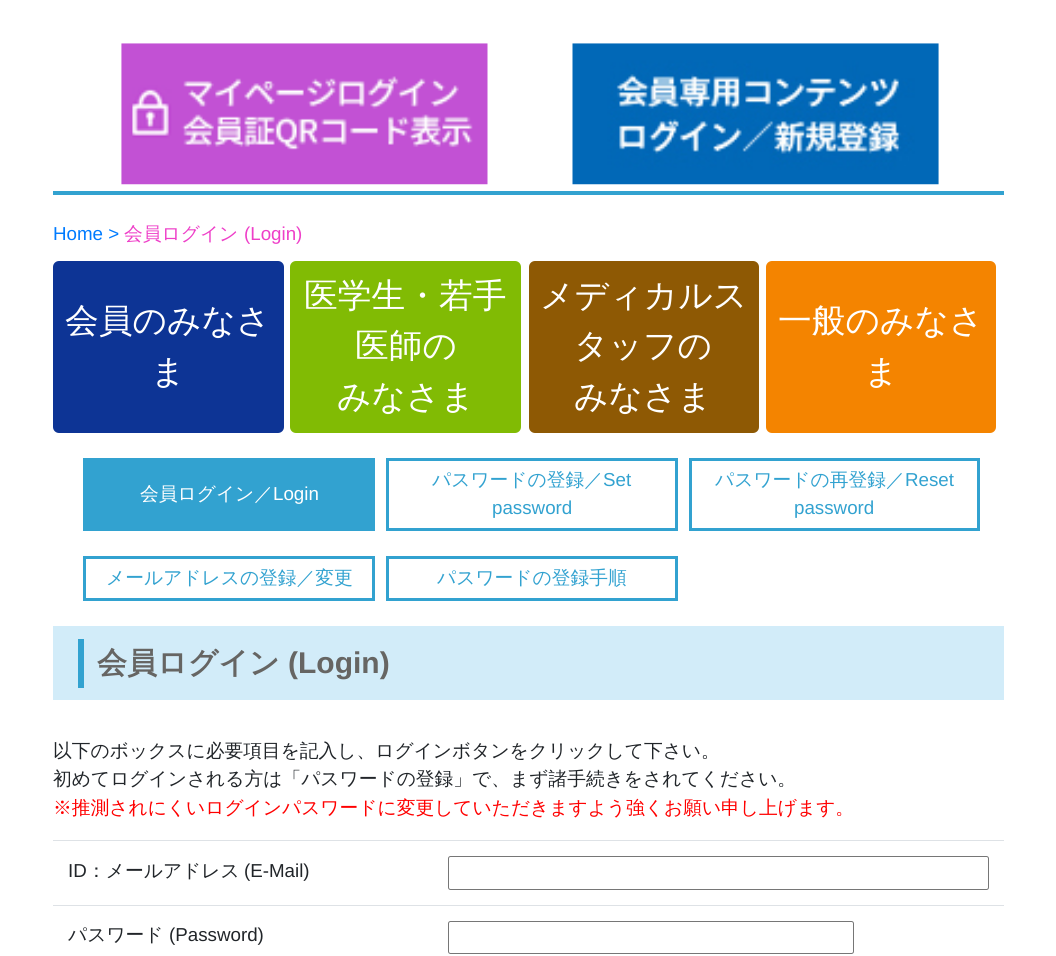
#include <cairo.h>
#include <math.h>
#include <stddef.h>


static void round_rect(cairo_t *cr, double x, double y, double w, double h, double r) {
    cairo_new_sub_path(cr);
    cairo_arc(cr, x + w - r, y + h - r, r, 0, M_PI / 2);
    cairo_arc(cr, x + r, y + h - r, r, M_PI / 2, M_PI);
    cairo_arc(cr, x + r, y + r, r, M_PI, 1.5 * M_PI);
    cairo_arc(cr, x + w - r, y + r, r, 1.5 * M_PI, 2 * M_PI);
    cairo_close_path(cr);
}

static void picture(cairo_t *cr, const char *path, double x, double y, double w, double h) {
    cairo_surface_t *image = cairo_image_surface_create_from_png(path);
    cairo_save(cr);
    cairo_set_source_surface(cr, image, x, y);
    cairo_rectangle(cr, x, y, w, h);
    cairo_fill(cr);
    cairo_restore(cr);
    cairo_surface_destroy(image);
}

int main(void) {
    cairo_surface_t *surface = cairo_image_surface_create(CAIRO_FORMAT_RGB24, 1056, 956);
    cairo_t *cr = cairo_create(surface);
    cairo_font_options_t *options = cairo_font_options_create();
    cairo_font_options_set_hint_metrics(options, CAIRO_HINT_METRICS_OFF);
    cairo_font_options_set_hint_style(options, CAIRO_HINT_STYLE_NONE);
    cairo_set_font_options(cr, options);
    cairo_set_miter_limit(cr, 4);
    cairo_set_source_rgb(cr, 1, 1, 1);
    cairo_paint(cr);
    picture(cr, "img1.png", 121, 43, 367, 142);
    picture(cr, "img2.png", 572, 43, 367, 142);
    cairo_set_source_rgb(cr, 0.196, 0.635, 0.816);
    cairo_rectangle(cr, 53, 191, 951, 4);
    cairo_fill(cr);
    cairo_select_font_face(cr, "Liberation Sans", CAIRO_FONT_SLANT_NORMAL, CAIRO_FONT_WEIGHT_NORMAL);
    cairo_set_font_size(cr, 18.75);
    cairo_set_source_rgb(cr, 0, 0.482, 1);
    cairo_move_to(cr, 53, 240);
    cairo_show_text(cr, "Home >");
    cairo_select_font_face(cr, "WenQuanYi Zen Hei Medium", CAIRO_FONT_SLANT_NORMAL, CAIRO_FONT_WEIGHT_NORMAL);
    cairo_set_source_rgb(cr, 0.933, 0.247, 0.784);
    cairo_move_to(cr, 124, 240);
    cairo_show_text(cr, "会員ログイン");
    cairo_select_font_face(cr, "Liberation Sans", CAIRO_FONT_SLANT_NORMAL, CAIRO_FONT_WEIGHT_NORMAL);
    cairo_move_to(cr, 244, 240);
    cairo_show_text(cr, "(Login)");
    cairo_set_source_rgb(cr, 0.051, 0.204, 0.584);
    round_rect(cr, 53, 261, 231, 172, 6);
    cairo_fill(cr);
    cairo_select_font_face(cr, "WenQuanYi Zen Hei Medium", CAIRO_FONT_SLANT_NORMAL, CAIRO_FONT_WEIGHT_NORMAL);
    cairo_set_font_size(cr, 33.75);
    cairo_set_source_rgb(cr, 1, 1, 1);
    cairo_move_to(cr, 65, 332);
    cairo_show_text(cr, "会員のみなさ");
    cairo_move_to(cr, 151, 383);
    cairo_show_text(cr, "ま");
    cairo_set_source_rgb(cr, 0.506, 0.733, 0.016);
    round_rect(cr, 290, 261, 231, 172, 6);
    cairo_fill(cr);
    cairo_set_source_rgb(cr, 1, 1, 1);
    cairo_move_to(cr, 304, 307);
    cairo_show_text(cr, "医学生・若手");
    cairo_move_to(cr, 355, 357);
    cairo_show_text(cr, "医師の");
    cairo_move_to(cr, 337, 408);
    cairo_show_text(cr, "みなさま");
    cairo_set_source_rgb(cr, 0.557, 0.349, 0.016);
    round_rect(cr, 529, 261, 230, 172, 6);
    cairo_fill(cr);
    cairo_set_source_rgb(cr, 1, 1, 1);
    cairo_move_to(cr, 540, 307);
    cairo_show_text(cr, "メディカルス");
    cairo_move_to(cr, 574, 357);
    cairo_show_text(cr, "タッフの");
    cairo_move_to(cr, 574, 408);
    cairo_show_text(cr, "みなさま");
    cairo_set_source_rgb(cr, 0.957, 0.518, 0);
    round_rect(cr, 766, 261, 230, 172, 6);
    cairo_fill(cr);
    cairo_set_source_rgb(cr, 1, 1, 1);
    cairo_move_to(cr, 778, 332);
    cairo_show_text(cr, "一般のみなさ");
    cairo_move_to(cr, 864, 383);
    cairo_show_text(cr, "ま");
    cairo_rectangle(cr, 84.5, 459.5, 289, 70);
    cairo_set_source_rgb(cr, 0.196, 0.635, 0.816);
    cairo_set_line_width(cr, 3);
    cairo_stroke(cr);
    cairo_rectangle(cr, 86, 461, 286, 67);
    cairo_fill(cr);
    cairo_set_font_size(cr, 18.75);
    cairo_set_source_rgb(cr, 1, 1, 1);
    cairo_move_to(cr, 140, 500);
    cairo_show_text(cr, "会員ログイン／");
    cairo_select_font_face(cr, "Liberation Sans", CAIRO_FONT_SLANT_NORMAL, CAIRO_FONT_WEIGHT_NORMAL);
    cairo_move_to(cr, 273, 500);
    cairo_show_text(cr, "Login");
    cairo_rectangle(cr, 387.5, 459.5, 289, 70);
    cairo_set_source_rgb(cr, 0.196, 0.635, 0.816);
    cairo_stroke(cr);
    cairo_select_font_face(cr, "WenQuanYi Zen Hei Medium", CAIRO_FONT_SLANT_NORMAL, CAIRO_FONT_WEIGHT_NORMAL);
    cairo_move_to(cr, 432, 486);
    cairo_show_text(cr, "パスワードの登録／");
    cairo_select_font_face(cr, "Liberation Sans", CAIRO_FONT_SLANT_NORMAL, CAIRO_FONT_WEIGHT_NORMAL);
    cairo_move_to(cr, 603, 486);
    cairo_show_text(cr, "Set");
    cairo_move_to(cr, 492, 514);
    cairo_show_text(cr, "password");
    cairo_rectangle(cr, 690.5, 459.5, 288, 70);
    cairo_stroke(cr);
    cairo_select_font_face(cr, "WenQuanYi Zen Hei Medium", CAIRO_FONT_SLANT_NORMAL, CAIRO_FONT_WEIGHT_NORMAL);
    cairo_move_to(cr, 715, 486);
    cairo_show_text(cr, "パスワードの再登録／");
    cairo_select_font_face(cr, "Liberation Sans", CAIRO_FONT_SLANT_NORMAL, CAIRO_FONT_WEIGHT_NORMAL);
    cairo_move_to(cr, 905, 486);
    cairo_show_text(cr, "Reset");
    cairo_move_to(cr, 794, 514);
    cairo_show_text(cr, "password");
    cairo_rectangle(cr, 84.5, 557.5, 289, 42);
    cairo_stroke(cr);
    cairo_select_font_face(cr, "WenQuanYi Zen Hei Medium", CAIRO_FONT_SLANT_NORMAL, CAIRO_FONT_WEIGHT_NORMAL);
    cairo_move_to(cr, 106, 584);
    cairo_show_text(cr, "メールアドレスの登録／変更");
    cairo_rectangle(cr, 387.5, 557.5, 289, 42);
    cairo_stroke(cr);
    cairo_move_to(cr, 437, 584);
    cairo_show_text(cr, "パスワードの登録手順");
    cairo_set_source_rgb(cr, 0.824, 0.925, 0.976);
    cairo_rectangle(cr, 53, 626, 951, 74);
    cairo_fill(cr);
    cairo_set_source_rgb(cr, 0.196, 0.635, 0.816);
    cairo_rectangle(cr, 78, 639, 6, 49);
    cairo_fill(cr);
    cairo_select_font_face(cr, "WenQuanYi Zen Hei", CAIRO_FONT_SLANT_NORMAL, CAIRO_FONT_WEIGHT_BOLD);
    cairo_set_font_size(cr, 30);
    cairo_set_source_rgb(cr, 0.4, 0.396, 0.388);
    cairo_move_to(cr, 97, 673);
    cairo_show_text(cr, "会員ログイン");
    cairo_select_font_face(cr, "Liberation Sans", CAIRO_FONT_SLANT_NORMAL, CAIRO_FONT_WEIGHT_BOLD);
    cairo_move_to(cr, 288, 673);
    cairo_show_text(cr, "(Login)");
    cairo_select_font_face(cr, "WenQuanYi Zen Hei Medium", CAIRO_FONT_SLANT_NORMAL, CAIRO_FONT_WEIGHT_NORMAL);
    cairo_set_font_size(cr, 18.75);
    cairo_set_source_rgb(cr, 0.129, 0.145, 0.161);
    cairo_move_to(cr, 53, 757);
    cairo_show_text(cr, "以下のボックスに必要項目を記入し、ログインボタンをクリックして下さい。");
    cairo_move_to(cr, 53, 785);
    cairo_show_text(cr, "初めてログインされる方は「パスワードの登録」で、まず諸手続きをされてください。");
    cairo_set_source_rgb(cr, 1, 0, 0);
    cairo_move_to(cr, 53, 814);
    cairo_show_text(cr, "※推測されにくいログインパスワードに変更していただきますよう強くお願い申し上げます。");
    cairo_set_source_rgb(cr, 0.871, 0.886, 0.902);
    cairo_rectangle(cr, 53, 840, 951, 1);
    cairo_fill(cr);
    round_rect(cr, 448.5, 856.5, 540, 33, 2);
    cairo_set_source_rgb(cr, 0.463, 0.463, 0.463);
    cairo_set_line_width(cr, 1);
    cairo_stroke(cr);
    cairo_select_font_face(cr, "Liberation Sans", CAIRO_FONT_SLANT_NORMAL, CAIRO_FONT_WEIGHT_NORMAL);
    cairo_set_source_rgb(cr, 0.129, 0.145, 0.161);
    cairo_move_to(cr, 68, 877);
    cairo_show_text(cr, "ID");
    cairo_select_font_face(cr, "WenQuanYi Zen Hei Medium", CAIRO_FONT_SLANT_NORMAL, CAIRO_FONT_WEIGHT_NORMAL);
    cairo_move_to(cr, 87, 877);
    cairo_show_text(cr, "：メールアドレス");
    cairo_select_font_face(cr, "Liberation Sans", CAIRO_FONT_SLANT_NORMAL, CAIRO_FONT_WEIGHT_NORMAL);
    cairo_move_to(cr, 244, 877);
    cairo_show_text(cr, "(E-Mail)");
    cairo_set_source_rgb(cr, 0.871, 0.886, 0.902);
    cairo_rectangle(cr, 53, 905, 951, 1);
    cairo_fill(cr);
    round_rect(cr, 448.5, 921.5, 405, 32, 2);
    cairo_set_source_rgb(cr, 0.463, 0.463, 0.463);
    cairo_stroke(cr);
    cairo_select_font_face(cr, "WenQuanYi Zen Hei Medium", CAIRO_FONT_SLANT_NORMAL, CAIRO_FONT_WEIGHT_NORMAL);
    cairo_set_source_rgb(cr, 0.129, 0.145, 0.161);
    cairo_move_to(cr, 68, 941);
    cairo_show_text(cr, "パスワード");
    cairo_select_font_face(cr, "Liberation Sans", CAIRO_FONT_SLANT_NORMAL, CAIRO_FONT_WEIGHT_NORMAL);
    cairo_move_to(cr, 169, 941);
    cairo_show_text(cr, "(Password)");
    cairo_surface_write_to_png(surface, "page.png");
    cairo_font_options_destroy(options);
    cairo_destroy(cr);
    cairo_surface_destroy(surface);
    return 0;
}
